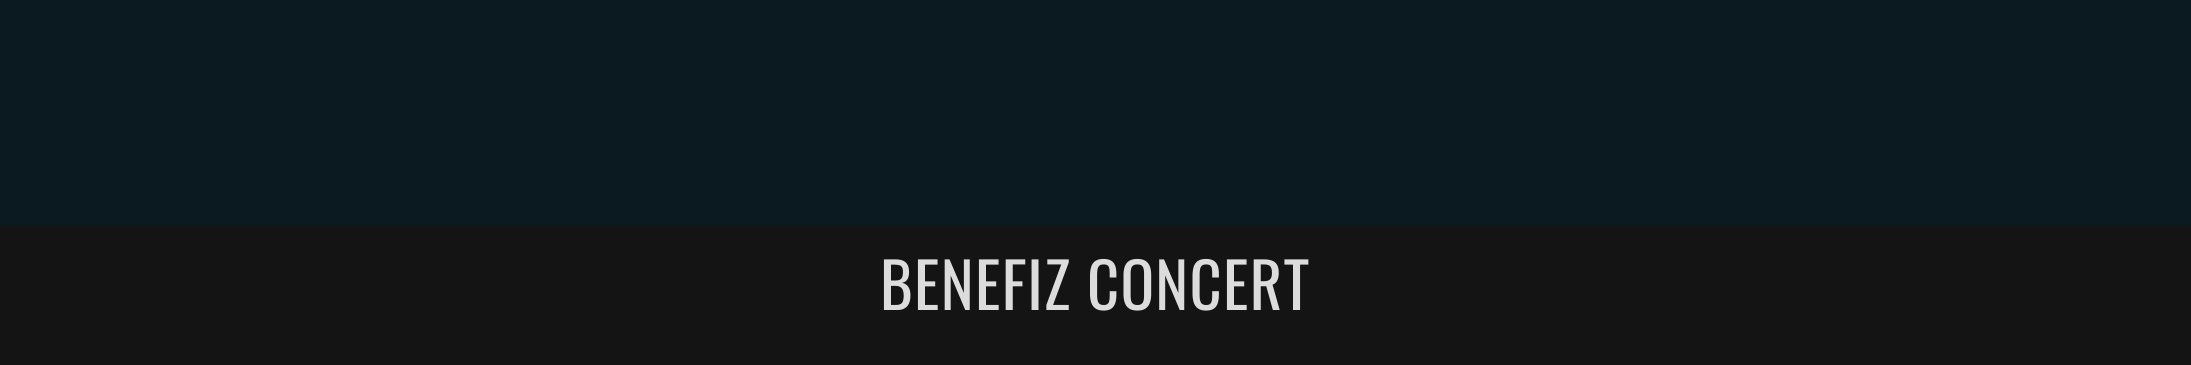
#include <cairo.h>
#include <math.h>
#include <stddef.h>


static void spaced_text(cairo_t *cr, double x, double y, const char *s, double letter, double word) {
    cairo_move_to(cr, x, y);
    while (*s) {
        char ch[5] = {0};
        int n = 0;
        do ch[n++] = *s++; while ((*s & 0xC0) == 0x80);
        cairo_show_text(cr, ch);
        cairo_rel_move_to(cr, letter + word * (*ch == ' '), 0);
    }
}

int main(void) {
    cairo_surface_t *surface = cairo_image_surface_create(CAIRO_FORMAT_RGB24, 2191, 365);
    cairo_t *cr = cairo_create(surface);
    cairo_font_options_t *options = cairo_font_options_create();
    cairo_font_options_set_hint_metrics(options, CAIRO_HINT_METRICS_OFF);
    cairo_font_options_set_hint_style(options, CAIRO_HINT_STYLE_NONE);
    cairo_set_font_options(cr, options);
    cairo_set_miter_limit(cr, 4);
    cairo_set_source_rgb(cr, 0.082, 0.082, 0.082);
    cairo_paint(cr);
    cairo_set_source_rgb(cr, 0.043, 0.098, 0.129);
    cairo_rectangle(cr, 0, 0, 2191, 226);
    cairo_fill(cr);
    cairo_select_font_face(cr, "Oswald", CAIRO_FONT_SLANT_NORMAL, CAIRO_FONT_WEIGHT_NORMAL);
    cairo_set_font_size(cr, 62.5);
    cairo_set_source_rgb(cr, 0.863, 0.863, 0.863);
    spaced_text(cr, 880, 310, "BENEFIZ CONCERT", 1.25, 0);
    cairo_surface_write_to_png(surface, "page.png");
    cairo_font_options_destroy(options);
    cairo_destroy(cr);
    cairo_surface_destroy(surface);
    return 0;
}
